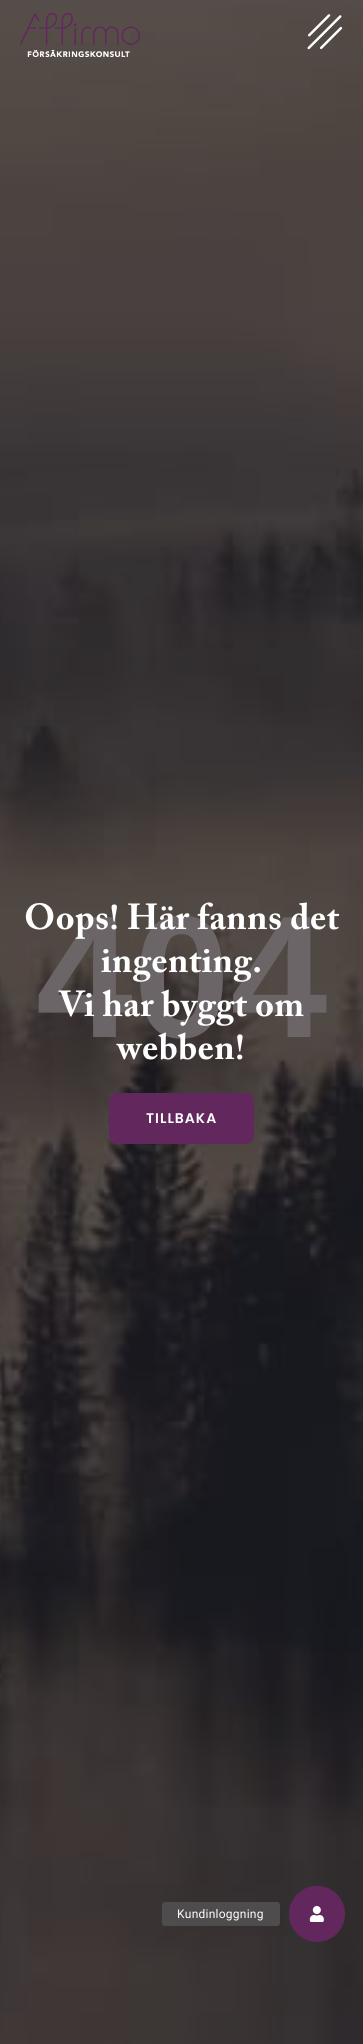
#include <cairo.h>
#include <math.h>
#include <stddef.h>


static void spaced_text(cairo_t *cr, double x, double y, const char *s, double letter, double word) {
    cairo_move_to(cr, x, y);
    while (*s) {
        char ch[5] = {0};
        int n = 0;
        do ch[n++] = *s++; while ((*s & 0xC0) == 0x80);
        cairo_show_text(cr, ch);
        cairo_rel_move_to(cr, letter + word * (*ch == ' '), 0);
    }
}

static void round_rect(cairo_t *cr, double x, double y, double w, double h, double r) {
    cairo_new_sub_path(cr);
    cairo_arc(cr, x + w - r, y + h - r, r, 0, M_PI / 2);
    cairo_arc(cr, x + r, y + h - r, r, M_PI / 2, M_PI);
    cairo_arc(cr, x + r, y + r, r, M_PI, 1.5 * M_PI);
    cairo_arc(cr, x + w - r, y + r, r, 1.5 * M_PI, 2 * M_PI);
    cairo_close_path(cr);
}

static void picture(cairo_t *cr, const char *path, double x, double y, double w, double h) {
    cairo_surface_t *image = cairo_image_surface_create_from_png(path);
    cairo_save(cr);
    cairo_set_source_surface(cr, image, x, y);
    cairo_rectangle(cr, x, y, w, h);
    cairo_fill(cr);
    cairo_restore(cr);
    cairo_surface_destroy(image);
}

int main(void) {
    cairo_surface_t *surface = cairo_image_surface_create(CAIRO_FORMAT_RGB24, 363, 2044);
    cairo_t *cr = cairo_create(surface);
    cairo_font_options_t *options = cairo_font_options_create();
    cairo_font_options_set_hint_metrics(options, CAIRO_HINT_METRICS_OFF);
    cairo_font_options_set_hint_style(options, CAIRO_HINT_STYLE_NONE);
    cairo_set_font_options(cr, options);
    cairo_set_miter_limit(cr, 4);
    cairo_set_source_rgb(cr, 1, 1, 1);
    cairo_paint(cr);
    picture(cr, "img3.png", 0, 0, 363, 2044);
    picture(cr, "img1.png", 20, 13, 120, 44);
    picture(cr, "img2.png", 307, 14, 36, 36);
    cairo_select_font_face(cr, "Liberation Sans", CAIRO_FONT_SLANT_NORMAL, CAIRO_FONT_WEIGHT_BOLD);
    cairo_set_font_size(cr, 174);
    cairo_set_source_rgb(cr, 0.42, 0.396, 0.408);
    spaced_text(cr, 36, 1037, "404", 0.5, 0);
    picture(cr, "img4.png", 25, 902, 315, 37);
    picture(cr, "img5.png", 101, 949, 159, 33);
    picture(cr, "img6.png", 58, 989, 246, 37);
    picture(cr, "img7.png", 116, 1032, 127, 28);
    cairo_set_source_rgb(cr, 0.384, 0.157, 0.369);
    round_rect(cr, 110, 1094, 143, 49, 7);
    cairo_fill_preserve(cr);
    cairo_stroke(cr);
    cairo_select_font_face(cr, "Poppins SemiBold", CAIRO_FONT_SLANT_NORMAL, CAIRO_FONT_WEIGHT_NORMAL);
    cairo_set_font_size(cr, 14);
    cairo_set_source_rgb(cr, 1, 1, 1);
    spaced_text(cr, 146, 1123, "TILLBAKA", 1, 0);
    cairo_set_source_rgb(cr, 0.384, 0.157, 0.369);
    cairo_new_path(cr);
    cairo_arc(cr, 317, 1914, 28, 0, 2 * M_PI);
    cairo_fill(cr);
    cairo_set_source_rgb(cr, 0.306, 0.298, 0.298);
    round_rect(cr, 162, 1902, 118, 24, 3);
    cairo_fill(cr);
    cairo_select_font_face(cr, "Roboto", CAIRO_FONT_SLANT_NORMAL, CAIRO_FONT_WEIGHT_NORMAL);
    cairo_set_font_size(cr, 12);
    cairo_set_source_rgb(cr, 1, 1, 1);
    spaced_text(cr, 177, 1918, "Kundinloggning", 0.25, 0);
    picture(cr, "img8.png", 309, 1906, 15, 16);
    cairo_surface_write_to_png(surface, "page.png");
    cairo_font_options_destroy(options);
    cairo_destroy(cr);
    cairo_surface_destroy(surface);
    return 0;
}
